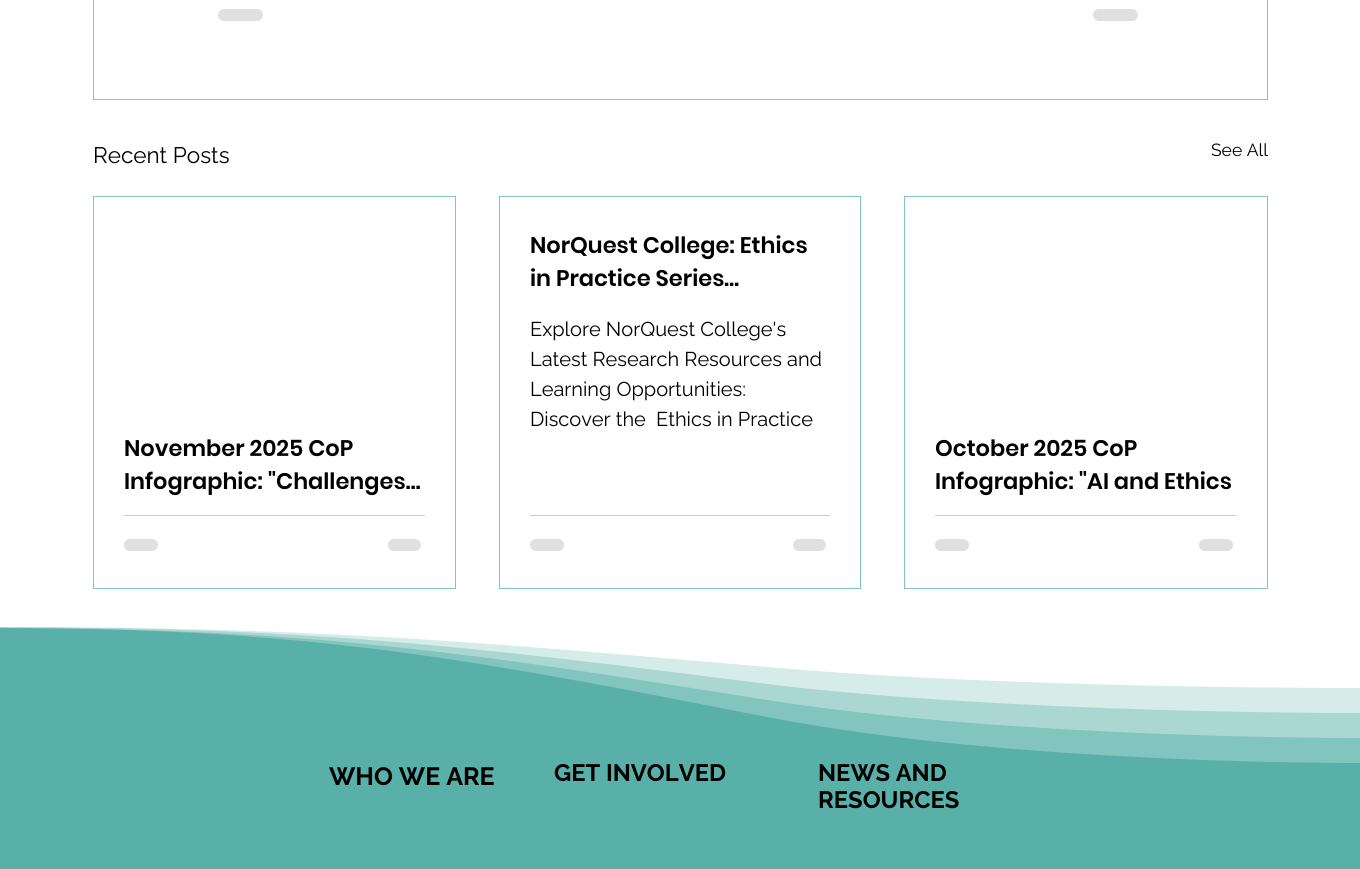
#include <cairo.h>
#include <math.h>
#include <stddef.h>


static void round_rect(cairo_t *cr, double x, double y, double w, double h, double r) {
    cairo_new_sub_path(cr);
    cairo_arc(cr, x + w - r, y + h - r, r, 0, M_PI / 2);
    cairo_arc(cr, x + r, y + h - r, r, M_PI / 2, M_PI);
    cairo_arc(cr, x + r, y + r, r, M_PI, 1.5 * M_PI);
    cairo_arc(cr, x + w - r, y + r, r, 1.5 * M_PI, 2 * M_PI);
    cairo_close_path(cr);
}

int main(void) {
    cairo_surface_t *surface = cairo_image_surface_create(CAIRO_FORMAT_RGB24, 1360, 869);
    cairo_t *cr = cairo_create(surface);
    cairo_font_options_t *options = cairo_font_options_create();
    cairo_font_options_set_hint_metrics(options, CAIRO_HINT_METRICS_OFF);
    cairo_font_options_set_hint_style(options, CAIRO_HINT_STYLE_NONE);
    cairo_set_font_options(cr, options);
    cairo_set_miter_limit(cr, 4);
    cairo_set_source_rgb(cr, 1, 1, 1);
    cairo_paint(cr);
    cairo_rectangle(cr, 93.5, -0.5, 1174, 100);
    cairo_set_source_rgb(cr, 0.51, 0.769, 0.745);
    cairo_set_line_width(cr, 1);
    cairo_stroke(cr);
    cairo_set_source_rgb(cr, 0.878, 0.878, 0.878);
    round_rect(cr, 218, 9, 45, 12, 6);
    cairo_fill(cr);
    round_rect(cr, 1093, 9, 45, 12, 6);
    cairo_fill(cr);
    cairo_select_font_face(cr, "Raleway", CAIRO_FONT_SLANT_NORMAL, CAIRO_FONT_WEIGHT_NORMAL);
    cairo_set_font_size(cr, 22.5);
    cairo_set_source_rgb(cr, 0, 0, 0);
    cairo_move_to(cr, 93, 163);
    cairo_show_text(cr, "Recent Posts");
    cairo_set_font_size(cr, 17.5);
    cairo_move_to(cr, 1211, 156);
    cairo_show_text(cr, "See All");
    cairo_rectangle(cr, 499.5, 196.5, 361, 392);
    cairo_set_source_rgb(cr, 0.51, 0.769, 0.745);
    cairo_stroke(cr);
    cairo_select_font_face(cr, "Poppins SemiBold", CAIRO_FONT_SLANT_NORMAL, CAIRO_FONT_WEIGHT_NORMAL);
    cairo_set_font_size(cr, 22.5);
    cairo_set_source_rgb(cr, 0, 0, 0);
    cairo_move_to(cr, 530, 253);
    cairo_show_text(cr, "NorQuest College: Ethics");
    cairo_move_to(cr, 530, 286);
    cairo_show_text(cr, "in Practice Series…");
    cairo_select_font_face(cr, "Raleway", CAIRO_FONT_SLANT_NORMAL, CAIRO_FONT_WEIGHT_NORMAL);
    cairo_set_font_size(cr, 20);
    cairo_move_to(cr, 530, 336);
    cairo_show_text(cr, "Explore NorQuest College's");
    cairo_move_to(cr, 530, 366);
    cairo_show_text(cr, "Latest Research Resources and");
    cairo_move_to(cr, 530, 396);
    cairo_show_text(cr, "Learning Opportunities:");
    cairo_move_to(cr, 530, 426);
    cairo_show_text(cr, "Discover the  Ethics in Practice");
    cairo_set_source_rgb(cr, 0.8, 0.8, 0.8);
    cairo_rectangle(cr, 530, 515, 300, 1);
    cairo_fill(cr);
    cairo_set_source_rgb(cr, 0.878, 0.878, 0.878);
    round_rect(cr, 530, 539, 34, 12, 6);
    cairo_fill(cr);
    round_rect(cr, 793, 539, 33, 12, 6);
    cairo_fill(cr);
    cairo_rectangle(cr, 93.5, 196.5, 362, 392);
    cairo_set_source_rgb(cr, 0.51, 0.769, 0.745);
    cairo_stroke(cr);
    cairo_select_font_face(cr, "Poppins SemiBold", CAIRO_FONT_SLANT_NORMAL, CAIRO_FONT_WEIGHT_NORMAL);
    cairo_set_font_size(cr, 22.5);
    cairo_set_source_rgb(cr, 0, 0, 0);
    cairo_move_to(cr, 124, 456);
    cairo_show_text(cr, "November 2025 CoP");
    cairo_move_to(cr, 124, 489);
    cairo_show_text(cr, "Infographic: \"Challenges…");
    cairo_set_source_rgb(cr, 0.8, 0.8, 0.8);
    cairo_rectangle(cr, 124, 515, 301, 1);
    cairo_fill(cr);
    cairo_set_source_rgb(cr, 0.878, 0.878, 0.878);
    round_rect(cr, 124, 539, 34, 12, 6);
    cairo_fill(cr);
    round_rect(cr, 388, 539, 33, 12, 6);
    cairo_fill(cr);
    cairo_rectangle(cr, 904.5, 196.5, 363, 392);
    cairo_set_source_rgb(cr, 0.51, 0.769, 0.745);
    cairo_stroke(cr);
    cairo_set_source_rgb(cr, 0, 0, 0);
    cairo_move_to(cr, 935, 456);
    cairo_show_text(cr, "October 2025 CoP");
    cairo_move_to(cr, 935, 489);
    cairo_show_text(cr, "Infographic: \"AI and Ethics");
    cairo_set_source_rgb(cr, 0.8, 0.8, 0.8);
    cairo_rectangle(cr, 935, 515, 301, 1);
    cairo_fill(cr);
    cairo_set_source_rgb(cr, 0.878, 0.878, 0.878);
    round_rect(cr, 935, 539, 34, 12, 6);
    cairo_fill(cr);
    round_rect(cr, 1199, 539, 34, 12, 6);
    cairo_fill(cr);
    cairo_set_source_rgb(cr, 0.345, 0.69, 0.659);
    cairo_rectangle(cr, 0, 628, 1360, 241);
    cairo_fill(cr);
    cairo_save(cr);
    cairo_rectangle(cr, 0, 626, 1360, 138);
    cairo_clip(cr);
    cairo_set_source_rgb(cr, 0.51, 0.769, 0.745);
    cairo_new_path(cr);
    cairo_move_to(cr, 0, 625);
    cairo_line_to(cr, 0, 628);
    cairo_curve_to(cr, 322, 628, 489, 663, 767, 717);
    cairo_curve_to(cr, 1013, 765, 1360, 763, 1360, 763);
    cairo_line_to(cr, 1360, 625);
    cairo_close_path(cr);
    cairo_fill(cr);
    cairo_restore(cr);
    cairo_save(cr);
    cairo_rectangle(cr, 0, 626, 1360, 113);
    cairo_clip(cr);
    cairo_set_source_rgba(cr, 1, 1, 1, 0.33);
    cairo_new_path(cr);
    cairo_move_to(cr, 0, 625);
    cairo_line_to(cr, 0, 628);
    cairo_curve_to(cr, 322, 628, 489, 656, 767, 700);
    cairo_curve_to(cr, 1013, 739, 1360, 738, 1360, 738);
    cairo_line_to(cr, 1360, 625);
    cairo_close_path(cr);
    cairo_fill(cr);
    cairo_restore(cr);
    cairo_save(cr);
    cairo_rectangle(cr, 0, 626, 1360, 88);
    cairo_clip(cr);
    cairo_set_source_rgb(cr, 0.835, 0.922, 0.914);
    cairo_new_path(cr);
    cairo_move_to(cr, 0, 625);
    cairo_line_to(cr, 0, 627);
    cairo_curve_to(cr, 322, 627, 489, 649, 767, 684);
    cairo_curve_to(cr, 1013, 714, 1360, 713, 1360, 713);
    cairo_line_to(cr, 1360, 625);
    cairo_close_path(cr);
    cairo_fill(cr);
    cairo_restore(cr);
    cairo_save(cr);
    cairo_rectangle(cr, 0, 626, 1360, 63);
    cairo_clip(cr);
    cairo_set_source_rgb(cr, 1, 1, 1);
    cairo_new_path(cr);
    cairo_move_to(cr, 0, 625);
    cairo_line_to(cr, 0, 627);
    cairo_curve_to(cr, 322, 627, 489, 643, 767, 667);
    cairo_curve_to(cr, 1013, 689, 1360, 688, 1360, 688);
    cairo_line_to(cr, 1360, 625);
    cairo_close_path(cr);
    cairo_fill(cr);
    cairo_restore(cr);
    cairo_select_font_face(cr, "Raleway", CAIRO_FONT_SLANT_NORMAL, CAIRO_FONT_WEIGHT_BOLD);
    cairo_set_font_size(cr, 25);
    cairo_set_source_rgb(cr, 0, 0, 0);
    cairo_move_to(cr, 329, 785);
    cairo_show_text(cr, "WHO WE ARE");
    cairo_select_font_face(cr, "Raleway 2", CAIRO_FONT_SLANT_NORMAL, CAIRO_FONT_WEIGHT_BOLD);
    cairo_set_font_size(cr, 23.75);
    cairo_move_to(cr, 554, 781);
    cairo_show_text(cr, "GET INVOLVED");
    cairo_move_to(cr, 818, 781);
    cairo_show_text(cr, "NEWS AND");
    cairo_move_to(cr, 818, 808);
    cairo_show_text(cr, "RESOURCES");
    cairo_surface_write_to_png(surface, "page.png");
    cairo_font_options_destroy(options);
    cairo_destroy(cr);
    cairo_surface_destroy(surface);
    return 0;
}
